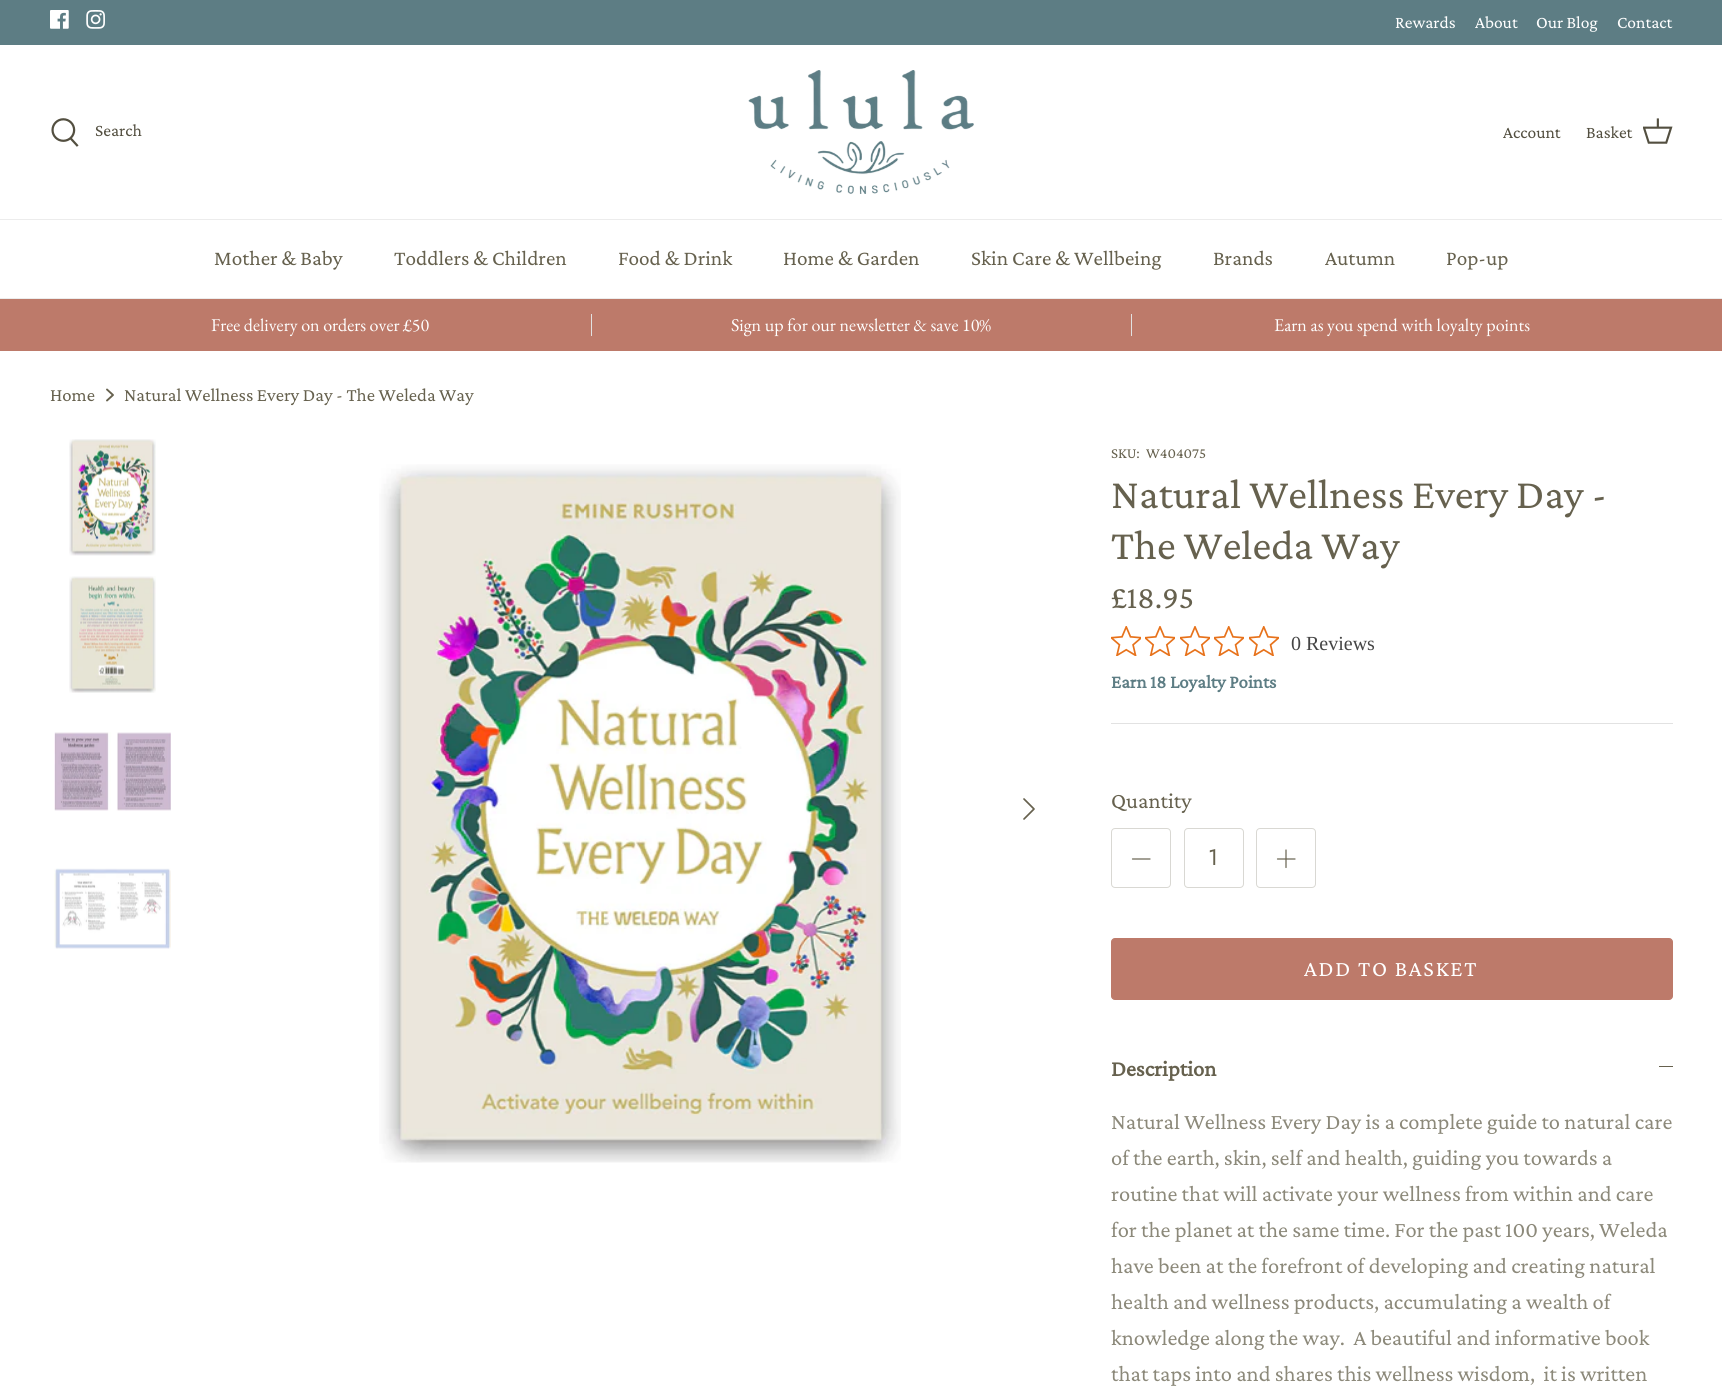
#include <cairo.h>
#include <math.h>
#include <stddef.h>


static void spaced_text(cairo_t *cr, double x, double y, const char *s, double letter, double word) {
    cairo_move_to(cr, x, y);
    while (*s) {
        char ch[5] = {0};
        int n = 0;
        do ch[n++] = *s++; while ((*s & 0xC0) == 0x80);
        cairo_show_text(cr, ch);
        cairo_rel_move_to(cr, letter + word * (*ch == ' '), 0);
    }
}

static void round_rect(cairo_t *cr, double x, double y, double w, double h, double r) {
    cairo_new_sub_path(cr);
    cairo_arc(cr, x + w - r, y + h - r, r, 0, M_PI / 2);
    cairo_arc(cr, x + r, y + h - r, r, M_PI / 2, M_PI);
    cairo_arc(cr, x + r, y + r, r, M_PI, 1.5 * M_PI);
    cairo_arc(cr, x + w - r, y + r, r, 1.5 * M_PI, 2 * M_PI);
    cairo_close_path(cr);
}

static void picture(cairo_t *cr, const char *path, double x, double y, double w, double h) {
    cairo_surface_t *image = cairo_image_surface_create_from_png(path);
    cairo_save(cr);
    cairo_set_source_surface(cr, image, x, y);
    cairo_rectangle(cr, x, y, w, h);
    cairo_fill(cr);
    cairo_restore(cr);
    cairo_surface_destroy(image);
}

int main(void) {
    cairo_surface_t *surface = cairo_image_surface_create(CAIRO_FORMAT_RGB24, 1722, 1398);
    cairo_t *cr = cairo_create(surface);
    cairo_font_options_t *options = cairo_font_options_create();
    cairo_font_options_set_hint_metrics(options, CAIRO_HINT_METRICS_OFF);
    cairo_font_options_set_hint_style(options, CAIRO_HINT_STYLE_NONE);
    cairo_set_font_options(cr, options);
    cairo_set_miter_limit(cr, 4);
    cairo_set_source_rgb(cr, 1, 1, 1);
    cairo_paint(cr);
    cairo_set_source_rgb(cr, 0.365, 0.49, 0.518);
    cairo_rectangle(cr, 0, 0, 1722, 45);
    cairo_fill(cr);
    picture(cr, "img1.png", 50, 10, 19, 19);
    picture(cr, "img2.png", 86, 10, 19, 19);
    cairo_select_font_face(cr, "Crimson Pro", CAIRO_FONT_SLANT_NORMAL, CAIRO_FONT_WEIGHT_NORMAL);
    cairo_set_font_size(cr, 17.5);
    cairo_set_source_rgb(cr, 1, 1, 1);
    cairo_move_to(cr, 1395, 28);
    cairo_show_text(cr, "Rewards");
    cairo_move_to(cr, 1475, 28);
    cairo_show_text(cr, "About");
    cairo_move_to(cr, 1536, 28);
    cairo_show_text(cr, "Our Blog");
    cairo_move_to(cr, 1617, 28);
    cairo_show_text(cr, "Contact");
    cairo_set_source_rgb(cr, 0.925, 0.925, 0.925);
    cairo_rectangle(cr, 0, 219, 1722, 1);
    cairo_fill(cr);
    picture(cr, "img3.png", 51, 118, 28, 29);
    cairo_set_source_rgb(cr, 0.325, 0.31, 0.251);
    cairo_move_to(cr, 95, 136);
    cairo_show_text(cr, "Search");
    picture(cr, "img4.png", 748, 70, 226, 124);
    cairo_move_to(cr, 1503, 138);
    cairo_show_text(cr, "Account");
    cairo_move_to(cr, 1586, 138);
    cairo_show_text(cr, "Basket");
    picture(cr, "img5.png", 1643, 118, 30, 26);
    cairo_set_source_rgb(cr, 0.925, 0.925, 0.925);
    cairo_rectangle(cr, 0, 298, 1722, 1);
    cairo_fill(cr);
    cairo_set_font_size(cr, 21.25);
    cairo_set_source_rgb(cr, 0.4, 0.38, 0.306);
    cairo_move_to(cr, 214, 265);
    cairo_show_text(cr, "Mother & Baby");
    cairo_move_to(cr, 394, 265);
    cairo_show_text(cr, "Toddlers & Children");
    cairo_move_to(cr, 618, 265);
    cairo_show_text(cr, "Food & Drink");
    cairo_move_to(cr, 783, 265);
    cairo_show_text(cr, "Home & Garden");
    cairo_move_to(cr, 971, 265);
    cairo_show_text(cr, "Skin Care & Wellbeing");
    cairo_move_to(cr, 1213, 265);
    cairo_show_text(cr, "Brands");
    cairo_move_to(cr, 1325, 265);
    cairo_show_text(cr, "Autumn");
    cairo_move_to(cr, 1446, 265);
    cairo_show_text(cr, "Pop-up");
    cairo_set_source_rgb(cr, 0.741, 0.478, 0.416);
    cairo_rectangle(cr, 0, 299, 1722, 52);
    cairo_fill(cr);
    cairo_select_font_face(cr, "EB Garamond", CAIRO_FONT_SLANT_NORMAL, CAIRO_FONT_WEIGHT_NORMAL);
    cairo_set_font_size(cr, 18);
    cairo_set_source_rgb(cr, 1, 1, 1);
    cairo_move_to(cr, 211, 331);
    cairo_show_text(cr, "Free delivery on orders over £50");
    cairo_set_source_rgb(cr, 0.886, 0.886, 0.886);
    cairo_rectangle(cr, 591, 314, 1, 22);
    cairo_fill(cr);
    cairo_set_source_rgb(cr, 1, 1, 1);
    cairo_move_to(cr, 731, 331);
    cairo_show_text(cr, "Sign up for our newsletter & save 10%");
    cairo_set_source_rgb(cr, 0.886, 0.886, 0.886);
    cairo_rectangle(cr, 1131, 314, 1, 22);
    cairo_fill(cr);
    cairo_set_source_rgb(cr, 1, 1, 1);
    cairo_move_to(cr, 1274, 331);
    cairo_show_text(cr, "Earn as you spend with loyalty points");
    cairo_select_font_face(cr, "Crimson Pro", CAIRO_FONT_SLANT_NORMAL, CAIRO_FONT_WEIGHT_NORMAL);
    cairo_set_font_size(cr, 18.75);
    cairo_set_source_rgb(cr, 0.4, 0.38, 0.306);
    cairo_move_to(cr, 50, 401);
    cairo_show_text(cr, "Home");
    cairo_new_path(cr);
    cairo_move_to(cr, 107, 400.5);
    cairo_line_to(cr, 113, 395);
    cairo_line_to(cr, 107, 389.5);
    cairo_set_line_width(cr, 1.9);
    cairo_set_line_cap(cr, CAIRO_LINE_CAP_ROUND);
    cairo_set_line_join(cr, CAIRO_LINE_JOIN_ROUND);
    cairo_stroke(cr);
    cairo_move_to(cr, 124, 401);
    cairo_show_text(cr, "Natural Wellness Every Day - The Weleda Way");
    picture(cr, "img6.png", 69, 439, 87, 117);
    picture(cr, "img7.png", 69, 576, 87, 117);
    picture(cr, "img8.png", 54, 732, 117, 79);
    picture(cr, "img9.png", 54, 868, 117, 81);
    picture(cr, "img10.png", 379, 464, 522, 699);
    cairo_new_path(cr);
    cairo_move_to(cr, 1024, 819);
    cairo_line_to(cr, 1034, 809);
    cairo_line_to(cr, 1024, 799);
    cairo_set_line_width(cr, 1.7);
    cairo_stroke(cr);
    cairo_set_font_size(cr, 15);
    cairo_move_to(cr, 1111, 458);
    cairo_show_text(cr, "SKU:");
    cairo_move_to(cr, 1146, 458);
    cairo_show_text(cr, "W404075");
    cairo_set_font_size(cr, 42.5);
    cairo_move_to(cr, 1111, 508);
    cairo_show_text(cr, "Natural Wellness Every Day -");
    cairo_move_to(cr, 1111, 559);
    cairo_show_text(cr, "The Weleda Way");
    cairo_set_font_size(cr, 32.5);
    cairo_move_to(cr, 1111, 608);
    cairo_show_text(cr, "£18.95");
    picture(cr, "img11.png", 1111, 626, 30, 30);
    picture(cr, "img12.png", 1145, 626, 30, 30);
    picture(cr, "img12.png", 1180, 626, 30, 30);
    picture(cr, "img13.png", 1214, 626, 30, 30);
    picture(cr, "img13.png", 1249, 626, 30, 30);
    cairo_select_font_face(cr, "Liberation Serif", CAIRO_FONT_SLANT_NORMAL, CAIRO_FONT_WEIGHT_NORMAL);
    cairo_set_font_size(cr, 20);
    cairo_set_source_rgb(cr, 0.267, 0.267, 0.267);
    cairo_move_to(cr, 1291, 650);
    cairo_show_text(cr, "0 Reviews");
    cairo_select_font_face(cr, "Crimson Pro", CAIRO_FONT_SLANT_NORMAL, CAIRO_FONT_WEIGHT_BOLD);
    cairo_set_font_size(cr, 18.75);
    cairo_set_source_rgb(cr, 0.365, 0.49, 0.518);
    cairo_move_to(cr, 1111, 688);
    cairo_show_text(cr, "Earn 18 Loyalty Points");
    cairo_set_source_rgb(cr, 0.886, 0.886, 0.886);
    cairo_rectangle(cr, 1111, 723, 562, 1);
    cairo_fill(cr);
    cairo_select_font_face(cr, "Crimson Pro", CAIRO_FONT_SLANT_NORMAL, CAIRO_FONT_WEIGHT_NORMAL);
    cairo_set_font_size(cr, 22.5);
    cairo_set_source_rgb(cr, 0.4, 0.38, 0.306);
    cairo_move_to(cr, 1111, 808);
    cairo_show_text(cr, "Quantity");
    round_rect(cr, 1111.5, 828.5, 59, 59, 3.5);
    cairo_set_source_rgb(cr, 0.851, 0.847, 0.827);
    cairo_set_line_width(cr, 1);
    cairo_set_line_cap(cr, CAIRO_LINE_CAP_BUTT);
    cairo_set_line_join(cr, CAIRO_LINE_JOIN_MITER);
    cairo_stroke(cr);
    cairo_new_path(cr);
    cairo_move_to(cr, 1132.5, 859);
    cairo_line_to(cr, 1150, 859);
    cairo_set_source_rgb(cr, 0.4, 0.38, 0.306);
    cairo_set_line_width(cr, 1.2);
    cairo_set_line_cap(cr, CAIRO_LINE_CAP_ROUND);
    cairo_set_line_join(cr, CAIRO_LINE_JOIN_ROUND);
    cairo_stroke(cr);
    round_rect(cr, 1184.5, 828.5, 59, 59, 3.5);
    cairo_set_source_rgb(cr, 0.851, 0.847, 0.827);
    cairo_set_line_width(cr, 1);
    cairo_set_line_cap(cr, CAIRO_LINE_CAP_BUTT);
    cairo_set_line_join(cr, CAIRO_LINE_JOIN_MITER);
    cairo_stroke(cr);
    cairo_select_font_face(cr, "Jost", CAIRO_FONT_SLANT_NORMAL, CAIRO_FONT_WEIGHT_NORMAL);
    cairo_set_source_rgb(cr, 0.4, 0.38, 0.306);
    cairo_move_to(cr, 1208, 865);
    cairo_show_text(cr, "1");
    round_rect(cr, 1256.5, 828.5, 59, 59, 3.5);
    cairo_set_source_rgb(cr, 0.851, 0.847, 0.827);
    cairo_stroke(cr);
    cairo_new_path(cr);
    cairo_move_to(cr, 1286, 850);
    cairo_line_to(cr, 1286, 867.5);
    cairo_move_to(cr, 1277.5, 859);
    cairo_line_to(cr, 1295, 859);
    cairo_set_source_rgb(cr, 0.4, 0.38, 0.306);
    cairo_set_line_width(cr, 1.2);
    cairo_set_line_cap(cr, CAIRO_LINE_CAP_ROUND);
    cairo_set_line_join(cr, CAIRO_LINE_JOIN_ROUND);
    cairo_stroke(cr);
    cairo_set_source_rgb(cr, 0.741, 0.478, 0.416);
    round_rect(cr, 1111.5, 938.5, 561, 61, 3.5);
    cairo_fill_preserve(cr);
    cairo_set_line_width(cr, 1);
    cairo_set_line_cap(cr, CAIRO_LINE_CAP_BUTT);
    cairo_set_line_join(cr, CAIRO_LINE_JOIN_MITER);
    cairo_stroke(cr);
    cairo_select_font_face(cr, "Crimson Pro", CAIRO_FONT_SLANT_NORMAL, CAIRO_FONT_WEIGHT_NORMAL);
    cairo_set_source_rgb(cr, 1, 1, 1);
    spaced_text(cr, 1304, 976, "ADD TO BASKET", 1.75, 0);
    cairo_select_font_face(cr, "Crimson Pro", CAIRO_FONT_SLANT_NORMAL, CAIRO_FONT_WEIGHT_BOLD);
    cairo_set_source_rgb(cr, 0.4, 0.38, 0.306);
    cairo_move_to(cr, 1111, 1076);
    cairo_show_text(cr, "Description");
    cairo_rectangle(cr, 1659, 1066, 14, 1);
    cairo_fill(cr);
    cairo_select_font_face(cr, "Crimson Pro", CAIRO_FONT_SLANT_NORMAL, CAIRO_FONT_WEIGHT_NORMAL);
    cairo_set_source_rgb(cr, 0.549, 0.537, 0.478);
    cairo_move_to(cr, 1111, 1129);
    cairo_show_text(cr, "Natural Wellness Every Day is a complete guide to natural care");
    cairo_move_to(cr, 1111, 1165);
    cairo_show_text(cr, "of the earth, skin, self and health, guiding you towards a");
    cairo_move_to(cr, 1111, 1201);
    cairo_show_text(cr, "routine that will activate your wellness from within and care");
    cairo_move_to(cr, 1111, 1237);
    cairo_show_text(cr, "for the planet at the same time. For the past 100 years, Weleda");
    cairo_move_to(cr, 1111, 1273);
    cairo_show_text(cr, "have been at the forefront of developing and creating natural");
    cairo_move_to(cr, 1111, 1309);
    cairo_show_text(cr, "health and wellness products, accumulating a wealth of");
    cairo_move_to(cr, 1111, 1345);
    cairo_show_text(cr, "knowledge along the way.  A beautiful and informative book");
    cairo_move_to(cr, 1111, 1381);
    cairo_show_text(cr, "that taps into and shares this wellness wisdom,  it is written");
    cairo_surface_write_to_png(surface, "page.png");
    cairo_font_options_destroy(options);
    cairo_destroy(cr);
    cairo_surface_destroy(surface);
    return 0;
}
